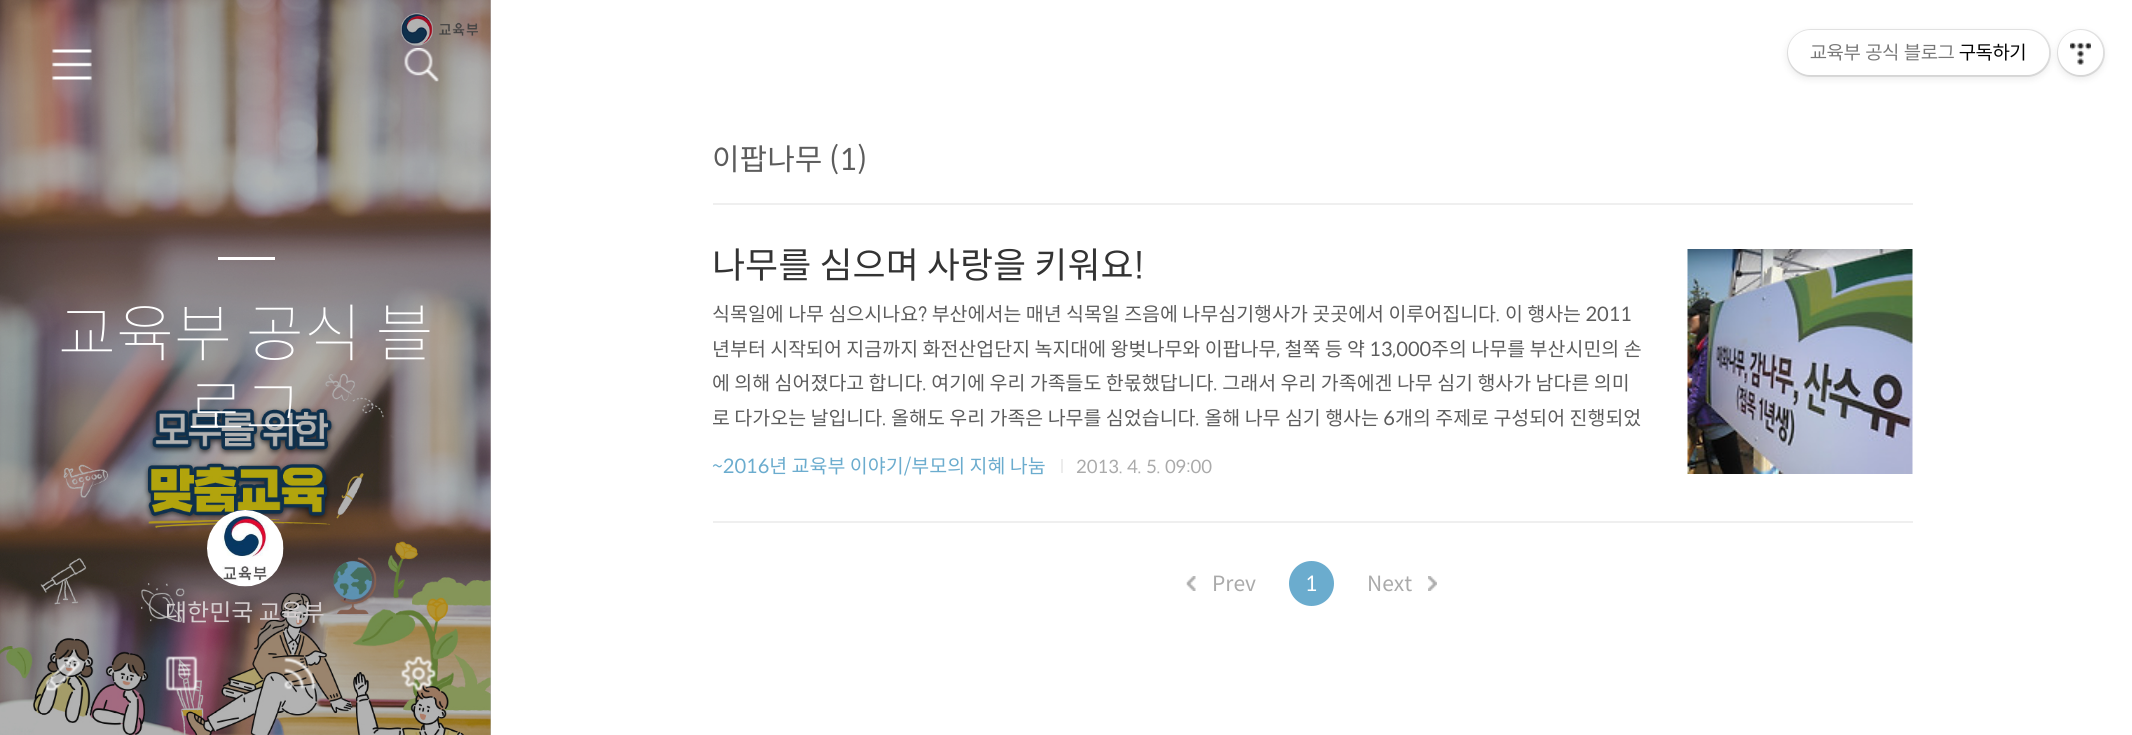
#include <cairo.h>
#include <math.h>
#include <stddef.h>


static void round_rect(cairo_t *cr, double x, double y, double w, double h, double r) {
    cairo_new_sub_path(cr);
    cairo_arc(cr, x + w - r, y + h - r, r, 0, M_PI / 2);
    cairo_arc(cr, x + r, y + h - r, r, M_PI / 2, M_PI);
    cairo_arc(cr, x + r, y + r, r, M_PI, 1.5 * M_PI);
    cairo_arc(cr, x + w - r, y + r, r, 1.5 * M_PI, 2 * M_PI);
    cairo_close_path(cr);
}

static void shadow(cairo_t *cr, double x, double y, double w, double h, double r, double blur, double alpha) {
    cairo_push_group_with_content(cr, CAIRO_CONTENT_ALPHA);
    cairo_set_operator(cr, CAIRO_OPERATOR_SOURCE);
    for (int i = 15; i >= -15 && fmin(w, h) + blur * i / 3 > 0; i -= 2) {
        double e = blur * i / 6;
        cairo_set_source_rgba(cr, 0, 0, 0, alpha * erfc((i - 1) / 8.5) / 2);
        round_rect(cr, x - e, y - e, w + 2 * e, h + 2 * e, fmax(0, fmin(r + e + blur * .6, fmin(w, h) / 2 + e)));
        cairo_fill(cr);
    }
    cairo_pattern_t *soft = cairo_pop_group(cr);
    cairo_mask(cr, soft);
    cairo_pattern_destroy(soft);
}

static void picture(cairo_t *cr, const char *path, double x, double y, double w, double h) {
    cairo_surface_t *image = cairo_image_surface_create_from_png(path);
    cairo_save(cr);
    cairo_set_source_surface(cr, image, x, y);
    cairo_rectangle(cr, x, y, w, h);
    cairo_fill(cr);
    cairo_restore(cr);
    cairo_surface_destroy(image);
}

int main(void) {
    cairo_surface_t *surface = cairo_image_surface_create(CAIRO_FORMAT_RGB24, 2132, 735);
    cairo_t *cr = cairo_create(surface);
    cairo_font_options_t *options = cairo_font_options_create();
    cairo_font_options_set_hint_metrics(options, CAIRO_HINT_METRICS_OFF);
    cairo_font_options_set_hint_style(options, CAIRO_HINT_STYLE_NONE);
    cairo_set_font_options(cr, options);
    cairo_set_miter_limit(cr, 4);
    cairo_set_source_rgb(cr, 1, 1, 1);
    cairo_paint(cr);
    cairo_set_source_rgb(cr, 0.698, 0.698, 0.698);
    cairo_rectangle(cr, 0, 0, 491, 735);
    cairo_fill(cr);
    cairo_set_source_rgb(cr, 0, 0, 0);
    shadow(cr, 2058, 33, 45, 45, 22.5, 4, 0.1);
    cairo_arc(cr, 2081, 53, 23, 0, 2 * M_PI);
    cairo_set_source_rgba(cr, 0, 0, 0, 0.1);
    cairo_stroke(cr);
    cairo_set_source_rgb(cr, 1, 1, 1);
    cairo_arc(cr, 2080.5, 52.5, 22.5, 0, 2 * M_PI);
    cairo_fill(cr);
    cairo_set_source_rgb(cr, 0, 0, 0);
    shadow(cr, 1788, 33, 261, 45, 22.5, 4, 0.1);
    round_rect(cr, 1788, 30, 262, 46, 23);
    cairo_set_source_rgba(cr, 0, 0, 0, 0.1);
    cairo_stroke(cr);
    cairo_set_source_rgb(cr, 1, 1, 1);
    round_rect(cr, 1788, 30, 261, 45, 22.5);
    cairo_fill(cr);
    cairo_select_font_face(cr, "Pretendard", CAIRO_FONT_SLANT_NORMAL, CAIRO_FONT_WEIGHT_NORMAL);
    cairo_set_font_size(cr, 19.5);
    cairo_set_source_rgb(cr, 0.467, 0.467, 0.467);
    cairo_move_to(cr, 1810, 59);
    cairo_show_text(cr, "교육부 공식 블로그");
    cairo_set_source_rgb(cr, 0, 0, 0);
    cairo_move_to(cr, 1959, 59);
    cairo_show_text(cr, "구독하기");
    picture(cr, "img1.png", 2070, 42, 21, 23);
    picture(cr, "img5.png", 0, 0, 491, 735);
    picture(cr, "img2.png", 52, 49, 40, 31);
    picture(cr, "img3.png", 404, 48, 35, 34);
    cairo_set_source_rgb(cr, 1, 1, 1);
    cairo_rectangle(cr, 218, 257, 57, 3);
    cairo_fill(cr);
    cairo_select_font_face(cr, "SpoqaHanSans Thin", CAIRO_FONT_SLANT_NORMAL, CAIRO_FONT_WEIGHT_NORMAL);
    cairo_set_font_size(cr, 63);
    cairo_move_to(cr, 58, 356);
    cairo_show_text(cr, "교육부 공식 블");
    cairo_move_to(cr, 187, 431);
    cairo_show_text(cr, "로그");
    picture(cr, "img4.png", 207, 510, 77, 77);
    cairo_select_font_face(cr, "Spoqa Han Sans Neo", CAIRO_FONT_SLANT_NORMAL, CAIRO_FONT_WEIGHT_NORMAL);
    cairo_set_font_size(cr, 24);
    cairo_set_source_rgb(cr, 0.835, 0.812, 0.816);
    cairo_move_to(cr, 165, 621);
    cairo_show_text(cr, "대한민국 교육부");
    picture(cr, "img6.png", 45, 656, 36, 35);
    picture(cr, "img7.png", 165, 656, 33, 35);
    picture(cr, "img8.png", 284, 657, 32, 33);
    picture(cr, "img9.png", 401, 656, 35, 35);
    cairo_set_source_rgb(cr, 0.937, 0.937, 0.937);
    cairo_rectangle(cr, 713, 203, 1200, 2);
    cairo_fill(cr);
    cairo_set_font_size(cr, 30);
    cairo_set_source_rgb(cr, 0.361, 0.361, 0.361);
    cairo_move_to(cr, 712, 170);
    cairo_show_text(cr, "이팝나무 (1)");
    cairo_set_source_rgb(cr, 0.937, 0.937, 0.937);
    cairo_rectangle(cr, 713, 521, 1200, 2);
    cairo_fill(cr);
    cairo_set_font_size(cr, 36);
    cairo_set_source_rgb(cr, 0.2, 0.2, 0.2);
    cairo_move_to(cr, 712, 278);
    cairo_show_text(cr, "나무를 심으며 사랑을 키워요!");
    cairo_set_font_size(cr, 19.5);
    cairo_set_source_rgb(cr, 0.361, 0.361, 0.361);
    cairo_move_to(cr, 712, 321);
    cairo_show_text(cr, "식목일에 나무 심으시나요? 부산에서는 매년 식목일 즈음에 나무심기행사가 곳곳에서 이루어집니다. 이 행사는 2011");
    cairo_move_to(cr, 712, 356);
    cairo_show_text(cr, "년부터 시작되어 지금까지 화전산업단지 녹지대에 왕벚나무와 이팝나무, 철쭉 등 약 13,000주의 나무를 부산시민의 손");
    cairo_move_to(cr, 712, 390);
    cairo_show_text(cr, "에 의해 심어졌다고 합니다. 여기에 우리 가족들도 한몫했답니다. 그래서 우리 가족에겐 나무 심기 행사가 남다른 의미");
    cairo_move_to(cr, 712, 425);
    cairo_show_text(cr, "로 다가오는 날입니다. 올해도 우리 가족은 나무를 심었습니다. 올해 나무 심기 행사는 6개의 주제로 구성되어 진행되었");
    picture(cr, "img10.png", 1687, 249, 226, 225);
    cairo_set_source_rgb(cr, 0.42, 0.675, 0.808);
    cairo_move_to(cr, 712, 473);
    cairo_show_text(cr, "~2016년 교육부 이야기/부모의 지혜 나눔");
    cairo_set_source_rgb(cr, 0.922, 0.922, 0.922);
    cairo_rectangle(cr, 1061, 459, 2, 14);
    cairo_fill(cr);
    cairo_set_font_size(cr, 18);
    cairo_set_source_rgb(cr, 0.667, 0.667, 0.667);
    cairo_move_to(cr, 1076, 473);
    cairo_show_text(cr, "2013. 4. 5. 09:00");
    picture(cr, "img11.png", 1186, 576, 10, 15);
    cairo_set_font_size(cr, 21);
    cairo_move_to(cr, 1212, 591);
    cairo_show_text(cr, "Prev");
    cairo_set_source_rgb(cr, 0.42, 0.675, 0.808);
    cairo_new_path(cr);
    cairo_arc(cr, 1311.5, 583.5, 22.5, 0, 2 * M_PI);
    cairo_fill(cr);
    cairo_set_source_rgb(cr, 1, 1, 1);
    cairo_move_to(cr, 1305, 591);
    cairo_show_text(cr, "1");
    cairo_set_source_rgb(cr, 0.667, 0.667, 0.667);
    cairo_move_to(cr, 1367, 591);
    cairo_show_text(cr, "Next");
    picture(cr, "img12.png", 1428, 576, 9, 15);
    cairo_surface_write_to_png(surface, "page.png");
    cairo_font_options_destroy(options);
    cairo_destroy(cr);
    cairo_surface_destroy(surface);
    return 0;
}
